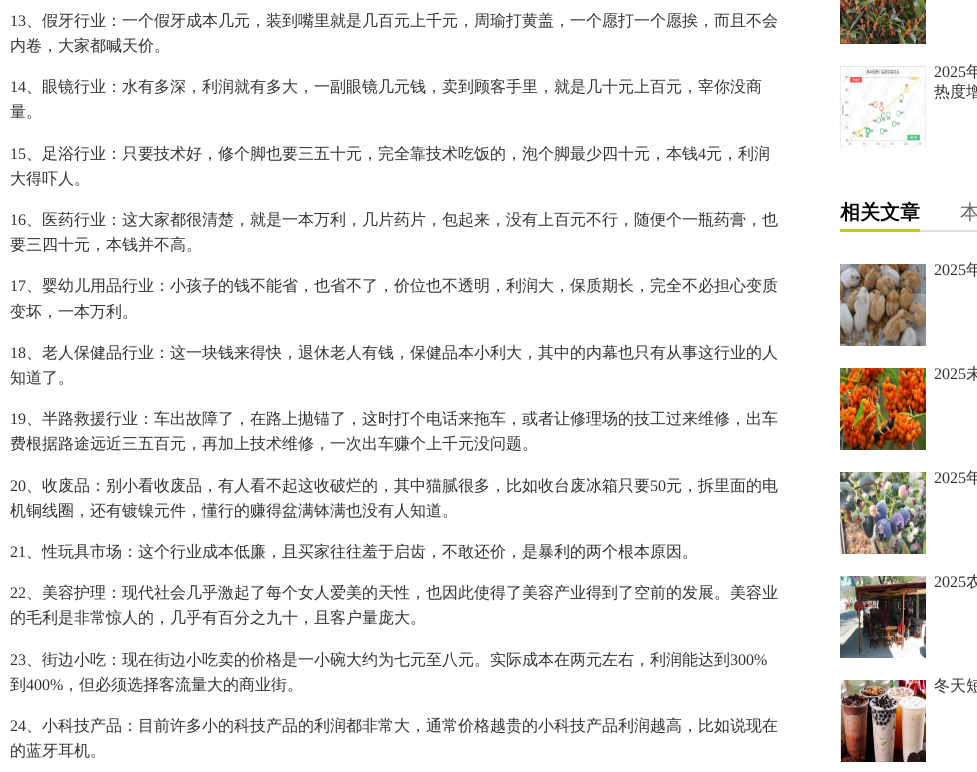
#include <cairo.h>
#include <math.h>
#include <stddef.h>


static void picture(cairo_t *cr, const char *path, double x, double y, double w, double h) {
    cairo_surface_t *image = cairo_image_surface_create_from_png(path);
    cairo_save(cr);
    cairo_set_source_surface(cr, image, x, y);
    cairo_rectangle(cr, x, y, w, h);
    cairo_fill(cr);
    cairo_restore(cr);
    cairo_surface_destroy(image);
}

int main(void) {
    cairo_surface_t *surface = cairo_image_surface_create(CAIRO_FORMAT_RGB24, 977, 772);
    cairo_t *cr = cairo_create(surface);
    cairo_font_options_t *options = cairo_font_options_create();
    cairo_font_options_set_hint_metrics(options, CAIRO_HINT_METRICS_OFF);
    cairo_font_options_set_hint_style(options, CAIRO_HINT_STYLE_NONE);
    cairo_set_font_options(cr, options);
    cairo_set_miter_limit(cr, 4);
    cairo_set_source_rgb(cr, 1, 1, 1);
    cairo_paint(cr);
    cairo_select_font_face(cr, "Liberation Serif", CAIRO_FONT_SLANT_NORMAL, CAIRO_FONT_WEIGHT_NORMAL);
    cairo_set_font_size(cr, 16);
    cairo_set_source_rgb(cr, 0.2, 0.2, 0.2);
    cairo_move_to(cr, 10, 26);
    cairo_show_text(cr, "13");
    cairo_select_font_face(cr, "WenQuanYi Zen Hei Medium", CAIRO_FONT_SLANT_NORMAL, CAIRO_FONT_WEIGHT_NORMAL);
    cairo_move_to(cr, 26, 26);
    cairo_show_text(cr, "、假牙行业：一个假牙成本几元，装到嘴里就是几百元上千元，周瑜打黄盖，一个愿打一个愿挨，而且不会");
    cairo_move_to(cr, 10, 51);
    cairo_show_text(cr, "内卷，大家都喊天价。");
    cairo_select_font_face(cr, "Liberation Serif", CAIRO_FONT_SLANT_NORMAL, CAIRO_FONT_WEIGHT_NORMAL);
    cairo_move_to(cr, 10, 92);
    cairo_show_text(cr, "14");
    cairo_select_font_face(cr, "WenQuanYi Zen Hei Medium", CAIRO_FONT_SLANT_NORMAL, CAIRO_FONT_WEIGHT_NORMAL);
    cairo_move_to(cr, 26, 92);
    cairo_show_text(cr, "、眼镜行业：水有多深，利润就有多大，一副眼镜几元钱，卖到顾客手里，就是几十元上百元，宰你没商");
    cairo_move_to(cr, 10, 117);
    cairo_show_text(cr, "量。");
    cairo_select_font_face(cr, "Liberation Serif", CAIRO_FONT_SLANT_NORMAL, CAIRO_FONT_WEIGHT_NORMAL);
    cairo_move_to(cr, 10, 159);
    cairo_show_text(cr, "15");
    cairo_select_font_face(cr, "WenQuanYi Zen Hei Medium", CAIRO_FONT_SLANT_NORMAL, CAIRO_FONT_WEIGHT_NORMAL);
    cairo_move_to(cr, 26, 159);
    cairo_show_text(cr, "、足浴行业：只要技术好，修个脚也要三五十元，完全靠技术吃饭的，泡个脚最少四十元，本钱");
    cairo_select_font_face(cr, "Liberation Serif", CAIRO_FONT_SLANT_NORMAL, CAIRO_FONT_WEIGHT_NORMAL);
    cairo_move_to(cr, 698, 159);
    cairo_show_text(cr, "4");
    cairo_select_font_face(cr, "WenQuanYi Zen Hei Medium", CAIRO_FONT_SLANT_NORMAL, CAIRO_FONT_WEIGHT_NORMAL);
    cairo_move_to(cr, 706, 159);
    cairo_show_text(cr, "元，利润");
    cairo_move_to(cr, 10, 184);
    cairo_show_text(cr, "大得吓人。");
    cairo_select_font_face(cr, "Liberation Serif", CAIRO_FONT_SLANT_NORMAL, CAIRO_FONT_WEIGHT_NORMAL);
    cairo_move_to(cr, 10, 225);
    cairo_show_text(cr, "16");
    cairo_select_font_face(cr, "WenQuanYi Zen Hei Medium", CAIRO_FONT_SLANT_NORMAL, CAIRO_FONT_WEIGHT_NORMAL);
    cairo_move_to(cr, 26, 225);
    cairo_show_text(cr, "、医药行业：这大家都很清楚，就是一本万利，几片药片，包起来，没有上百元不行，随便个一瓶药膏，也");
    cairo_move_to(cr, 10, 250);
    cairo_show_text(cr, "要三四十元，本钱并不高。");
    cairo_select_font_face(cr, "Liberation Serif", CAIRO_FONT_SLANT_NORMAL, CAIRO_FONT_WEIGHT_NORMAL);
    cairo_move_to(cr, 10, 291);
    cairo_show_text(cr, "17");
    cairo_select_font_face(cr, "WenQuanYi Zen Hei Medium", CAIRO_FONT_SLANT_NORMAL, CAIRO_FONT_WEIGHT_NORMAL);
    cairo_move_to(cr, 26, 291);
    cairo_show_text(cr, "、婴幼儿用品行业：小孩子的钱不能省，也省不了，价位也不透明，利润大，保质期长，完全不必担心变质");
    cairo_move_to(cr, 10, 317);
    cairo_show_text(cr, "变坏，一本万利。");
    cairo_select_font_face(cr, "Liberation Serif", CAIRO_FONT_SLANT_NORMAL, CAIRO_FONT_WEIGHT_NORMAL);
    cairo_move_to(cr, 10, 358);
    cairo_show_text(cr, "18");
    cairo_select_font_face(cr, "WenQuanYi Zen Hei Medium", CAIRO_FONT_SLANT_NORMAL, CAIRO_FONT_WEIGHT_NORMAL);
    cairo_move_to(cr, 26, 358);
    cairo_show_text(cr, "、老人保健品行业：这一块钱来得快，退休老人有钱，保健品本小利大，其中的内幕也只有从事这行业的人");
    cairo_move_to(cr, 10, 383);
    cairo_show_text(cr, "知道了。");
    cairo_select_font_face(cr, "Liberation Serif", CAIRO_FONT_SLANT_NORMAL, CAIRO_FONT_WEIGHT_NORMAL);
    cairo_move_to(cr, 10, 424);
    cairo_show_text(cr, "19");
    cairo_select_font_face(cr, "WenQuanYi Zen Hei Medium", CAIRO_FONT_SLANT_NORMAL, CAIRO_FONT_WEIGHT_NORMAL);
    cairo_move_to(cr, 26, 424);
    cairo_show_text(cr, "、半路救援行业：车出故障了，在路上拋锚了，这时打个电话来拖车，或者让修理场的技工过来维修，出车");
    cairo_move_to(cr, 10, 449);
    cairo_show_text(cr, "费根据路途远近三五百元，再加上技术维修，一次出车赚个上千元没问题。");
    cairo_select_font_face(cr, "Liberation Serif", CAIRO_FONT_SLANT_NORMAL, CAIRO_FONT_WEIGHT_NORMAL);
    cairo_move_to(cr, 10, 491);
    cairo_show_text(cr, "20");
    cairo_select_font_face(cr, "WenQuanYi Zen Hei Medium", CAIRO_FONT_SLANT_NORMAL, CAIRO_FONT_WEIGHT_NORMAL);
    cairo_move_to(cr, 26, 491);
    cairo_show_text(cr, "、收废品：别小看收废品，有人看不起这收破烂的，其中猫腻很多，比如收台废冰箱只要");
    cairo_select_font_face(cr, "Liberation Serif", CAIRO_FONT_SLANT_NORMAL, CAIRO_FONT_WEIGHT_NORMAL);
    cairo_move_to(cr, 650, 491);
    cairo_show_text(cr, "50");
    cairo_select_font_face(cr, "WenQuanYi Zen Hei Medium", CAIRO_FONT_SLANT_NORMAL, CAIRO_FONT_WEIGHT_NORMAL);
    cairo_move_to(cr, 666, 491);
    cairo_show_text(cr, "元，拆里面的电");
    cairo_move_to(cr, 10, 516);
    cairo_show_text(cr, "机铜线圈，还有镀镍元件，懂行的赚得盆满钵满也没有人知道。");
    cairo_select_font_face(cr, "Liberation Serif", CAIRO_FONT_SLANT_NORMAL, CAIRO_FONT_WEIGHT_NORMAL);
    cairo_move_to(cr, 10, 557);
    cairo_show_text(cr, "21");
    cairo_select_font_face(cr, "WenQuanYi Zen Hei Medium", CAIRO_FONT_SLANT_NORMAL, CAIRO_FONT_WEIGHT_NORMAL);
    cairo_move_to(cr, 26, 557);
    cairo_show_text(cr, "、性玩具市场：这个行业成本低廉，且买家往往羞于启齿，不敢还价，是暴利的两个根本原因。");
    cairo_select_font_face(cr, "Liberation Serif", CAIRO_FONT_SLANT_NORMAL, CAIRO_FONT_WEIGHT_NORMAL);
    cairo_move_to(cr, 10, 598);
    cairo_show_text(cr, "22");
    cairo_select_font_face(cr, "WenQuanYi Zen Hei Medium", CAIRO_FONT_SLANT_NORMAL, CAIRO_FONT_WEIGHT_NORMAL);
    cairo_move_to(cr, 26, 598);
    cairo_show_text(cr, "、美容护理：现代社会几乎激起了每个女人爱美的天性，也因此使得了美容产业得到了空前的发展。美容业");
    cairo_move_to(cr, 10, 623);
    cairo_show_text(cr, "的毛利是非常惊人的，几乎有百分之九十，且客户量庞大。");
    cairo_select_font_face(cr, "Liberation Serif", CAIRO_FONT_SLANT_NORMAL, CAIRO_FONT_WEIGHT_NORMAL);
    cairo_move_to(cr, 10, 665);
    cairo_show_text(cr, "23");
    cairo_select_font_face(cr, "WenQuanYi Zen Hei Medium", CAIRO_FONT_SLANT_NORMAL, CAIRO_FONT_WEIGHT_NORMAL);
    cairo_move_to(cr, 26, 665);
    cairo_show_text(cr, "、街边小吃：现在街边小吃卖的价格是一小碗大约为七元至八元。实际成本在两元左右，利润能达到");
    cairo_select_font_face(cr, "Liberation Serif", CAIRO_FONT_SLANT_NORMAL, CAIRO_FONT_WEIGHT_NORMAL);
    cairo_move_to(cr, 730, 665);
    cairo_show_text(cr, "300%");
    cairo_select_font_face(cr, "WenQuanYi Zen Hei Medium", CAIRO_FONT_SLANT_NORMAL, CAIRO_FONT_WEIGHT_NORMAL);
    cairo_move_to(cr, 10, 690);
    cairo_show_text(cr, "到");
    cairo_select_font_face(cr, "Liberation Serif", CAIRO_FONT_SLANT_NORMAL, CAIRO_FONT_WEIGHT_NORMAL);
    cairo_move_to(cr, 26, 690);
    cairo_show_text(cr, "400%");
    cairo_select_font_face(cr, "WenQuanYi Zen Hei Medium", CAIRO_FONT_SLANT_NORMAL, CAIRO_FONT_WEIGHT_NORMAL);
    cairo_move_to(cr, 63, 690);
    cairo_show_text(cr, "，但必须选择客流量大的商业街。");
    cairo_select_font_face(cr, "Liberation Serif", CAIRO_FONT_SLANT_NORMAL, CAIRO_FONT_WEIGHT_NORMAL);
    cairo_move_to(cr, 10, 731);
    cairo_show_text(cr, "24");
    cairo_select_font_face(cr, "WenQuanYi Zen Hei Medium", CAIRO_FONT_SLANT_NORMAL, CAIRO_FONT_WEIGHT_NORMAL);
    cairo_move_to(cr, 26, 731);
    cairo_show_text(cr, "、小科技产品：目前许多小的科技产品的利润都非常大，通常价格越贵的小科技产品利润越高，比如说现在");
    cairo_move_to(cr, 10, 756);
    cairo_show_text(cr, "的蓝牙耳机。");
    picture(cr, "img1.png", 840, 0, 86, 44);
    picture(cr, "img2.png", 840, 66, 86, 82);
    cairo_select_font_face(cr, "Liberation Serif", CAIRO_FONT_SLANT_NORMAL, CAIRO_FONT_WEIGHT_NORMAL);
    cairo_move_to(cr, 934, 77);
    cairo_show_text(cr, "2025");
    cairo_select_font_face(cr, "WenQuanYi Zen Hei Medium", CAIRO_FONT_SLANT_NORMAL, CAIRO_FONT_WEIGHT_NORMAL);
    cairo_move_to(cr, 966, 77);
    cairo_show_text(cr, "年");
    cairo_move_to(cr, 934, 97);
    cairo_show_text(cr, "热度增");
    cairo_select_font_face(cr, "WenQuanYi Zen Hei", CAIRO_FONT_SLANT_NORMAL, CAIRO_FONT_WEIGHT_BOLD);
    cairo_set_font_size(cr, 20);
    cairo_set_source_rgb(cr, 0, 0, 0);
    cairo_move_to(cr, 840, 219);
    cairo_show_text(cr, "相关文章");
    cairo_select_font_face(cr, "WenQuanYi Zen Hei Medium", CAIRO_FONT_SLANT_NORMAL, CAIRO_FONT_WEIGHT_NORMAL);
    cairo_set_source_rgb(cr, 0.4, 0.4, 0.4);
    cairo_move_to(cr, 960, 219);
    cairo_show_text(cr, "本");
    cairo_set_source_rgb(cr, 0.776, 0.769, 0.157);
    cairo_rectangle(cr, 840, 229, 80, 3);
    cairo_fill(cr);
    cairo_set_source_rgb(cr, 0.867, 0.867, 0.867);
    cairo_rectangle(cr, 920, 230, 57, 2);
    cairo_fill(cr);
    picture(cr, "img3.png", 840, 264, 86, 82);
    cairo_select_font_face(cr, "Liberation Serif", CAIRO_FONT_SLANT_NORMAL, CAIRO_FONT_WEIGHT_NORMAL);
    cairo_set_font_size(cr, 16);
    cairo_set_source_rgb(cr, 0.2, 0.2, 0.2);
    cairo_move_to(cr, 934, 275);
    cairo_show_text(cr, "2025");
    cairo_select_font_face(cr, "WenQuanYi Zen Hei Medium", CAIRO_FONT_SLANT_NORMAL, CAIRO_FONT_WEIGHT_NORMAL);
    cairo_move_to(cr, 966, 275);
    cairo_show_text(cr, "年");
    picture(cr, "img4.png", 840, 368, 86, 82);
    cairo_select_font_face(cr, "Liberation Serif", CAIRO_FONT_SLANT_NORMAL, CAIRO_FONT_WEIGHT_NORMAL);
    cairo_move_to(cr, 934, 379);
    cairo_show_text(cr, "2025");
    cairo_select_font_face(cr, "WenQuanYi Zen Hei Medium", CAIRO_FONT_SLANT_NORMAL, CAIRO_FONT_WEIGHT_NORMAL);
    cairo_move_to(cr, 966, 379);
    cairo_show_text(cr, "未");
    picture(cr, "img5.png", 840, 472, 86, 82);
    cairo_select_font_face(cr, "Liberation Serif", CAIRO_FONT_SLANT_NORMAL, CAIRO_FONT_WEIGHT_NORMAL);
    cairo_move_to(cr, 934, 483);
    cairo_show_text(cr, "2025");
    cairo_select_font_face(cr, "WenQuanYi Zen Hei Medium", CAIRO_FONT_SLANT_NORMAL, CAIRO_FONT_WEIGHT_NORMAL);
    cairo_move_to(cr, 966, 483);
    cairo_show_text(cr, "年");
    picture(cr, "img6.png", 840, 576, 86, 82);
    cairo_select_font_face(cr, "Liberation Serif", CAIRO_FONT_SLANT_NORMAL, CAIRO_FONT_WEIGHT_NORMAL);
    cairo_move_to(cr, 934, 587);
    cairo_show_text(cr, "2025");
    cairo_select_font_face(cr, "WenQuanYi Zen Hei Medium", CAIRO_FONT_SLANT_NORMAL, CAIRO_FONT_WEIGHT_NORMAL);
    cairo_move_to(cr, 966, 587);
    cairo_show_text(cr, "农");
    picture(cr, "img7.png", 840, 680, 86, 82);
    cairo_move_to(cr, 934, 691);
    cairo_show_text(cr, "冬天短");
    cairo_surface_write_to_png(surface, "page.png");
    cairo_font_options_destroy(options);
    cairo_destroy(cr);
    cairo_surface_destroy(surface);
    return 0;
}
